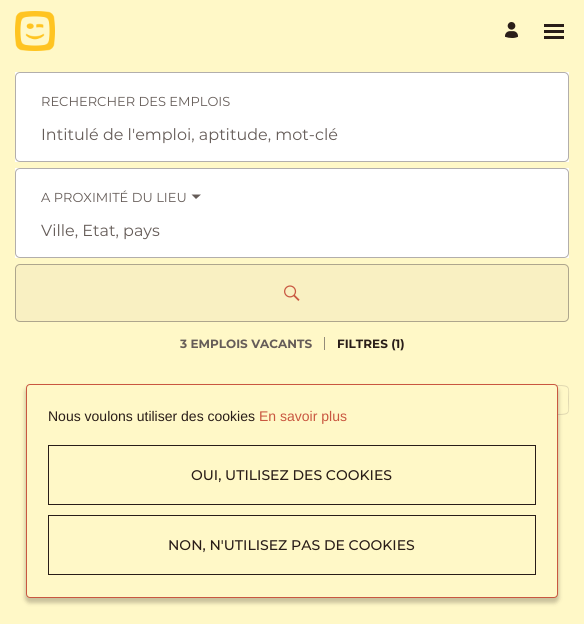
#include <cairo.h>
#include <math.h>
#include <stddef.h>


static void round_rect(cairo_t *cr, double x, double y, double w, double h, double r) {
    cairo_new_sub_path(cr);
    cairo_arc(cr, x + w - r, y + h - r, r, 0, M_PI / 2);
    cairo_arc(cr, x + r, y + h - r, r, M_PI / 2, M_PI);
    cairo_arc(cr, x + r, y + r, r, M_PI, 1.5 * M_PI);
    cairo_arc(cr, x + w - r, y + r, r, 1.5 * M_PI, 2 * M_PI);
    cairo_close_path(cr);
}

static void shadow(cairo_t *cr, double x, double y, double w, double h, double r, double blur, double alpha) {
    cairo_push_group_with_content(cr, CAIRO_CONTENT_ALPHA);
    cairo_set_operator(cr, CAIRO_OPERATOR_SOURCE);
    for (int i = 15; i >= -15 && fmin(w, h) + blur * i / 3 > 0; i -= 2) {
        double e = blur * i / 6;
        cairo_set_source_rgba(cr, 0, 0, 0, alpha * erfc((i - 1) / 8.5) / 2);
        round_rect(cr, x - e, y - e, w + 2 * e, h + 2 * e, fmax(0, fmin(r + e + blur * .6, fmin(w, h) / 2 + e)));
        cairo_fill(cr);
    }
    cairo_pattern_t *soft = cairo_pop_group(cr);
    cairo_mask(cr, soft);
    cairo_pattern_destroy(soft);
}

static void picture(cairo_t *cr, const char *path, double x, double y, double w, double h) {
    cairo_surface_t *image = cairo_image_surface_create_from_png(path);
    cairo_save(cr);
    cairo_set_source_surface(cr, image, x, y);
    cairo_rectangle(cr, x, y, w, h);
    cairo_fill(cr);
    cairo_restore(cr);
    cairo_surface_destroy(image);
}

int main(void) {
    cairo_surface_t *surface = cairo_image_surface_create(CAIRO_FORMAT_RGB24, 584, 624);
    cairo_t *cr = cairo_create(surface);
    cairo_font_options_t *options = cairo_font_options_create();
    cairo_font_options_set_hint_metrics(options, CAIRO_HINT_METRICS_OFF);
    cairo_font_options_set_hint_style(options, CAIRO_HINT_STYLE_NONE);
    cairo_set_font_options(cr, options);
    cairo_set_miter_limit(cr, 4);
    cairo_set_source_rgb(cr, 1, 0.969, 0.78);
    cairo_paint(cr);
    picture(cr, "img1.png", 15, 11, 40, 40);
    picture(cr, "img2.png", 505, 22, 13, 16);
    cairo_set_source_rgb(cr, 0.161, 0.114, 0.094);
    cairo_rectangle(cr, 544, 24, 20, 3);
    cairo_fill(cr);
    cairo_rectangle(cr, 544, 30, 20, 3);
    cairo_fill(cr);
    cairo_rectangle(cr, 544, 36, 20, 3);
    cairo_fill(cr);
    cairo_set_source_rgb(cr, 1, 1, 1);
    cairo_rectangle(cr, 15, 72, 554, 90);
    cairo_fill(cr);
    round_rect(cr, 15.5, 72.5, 553, 89, 4.5);
    cairo_set_source_rgb(cr, 0.698, 0.682, 0.675);
    cairo_set_line_width(cr, 1);
    cairo_stroke(cr);
    cairo_select_font_face(cr, "Montserrat", CAIRO_FONT_SLANT_NORMAL, CAIRO_FONT_WEIGHT_NORMAL);
    cairo_set_font_size(cr, 13);
    cairo_set_source_rgb(cr, 0.396, 0.361, 0.345);
    cairo_move_to(cr, 41, 106);
    cairo_show_text(cr, "RECHERCHER DES EMPLOIS");
    cairo_set_font_size(cr, 16);
    cairo_move_to(cr, 41, 140);
    cairo_show_text(cr, "Intitulé de l'emploi, aptitude, mot-clé");
    cairo_set_source_rgb(cr, 1, 1, 1);
    cairo_rectangle(cr, 15, 168, 554, 90);
    cairo_fill(cr);
    round_rect(cr, 15.5, 168.5, 553, 89, 4.5);
    cairo_set_source_rgb(cr, 0.698, 0.682, 0.675);
    cairo_stroke(cr);
    cairo_set_font_size(cr, 13);
    cairo_set_source_rgb(cr, 0.396, 0.361, 0.345);
    cairo_move_to(cr, 41, 202);
    cairo_show_text(cr, "A PROXIMITÉ DU LIEU");
    cairo_new_path(cr);
    cairo_move_to(cr, 196, 199);
    cairo_line_to(cr, 191.5, 194.5);
    cairo_line_to(cr, 201, 194.5);
    cairo_close_path(cr);
    cairo_fill(cr);
    cairo_set_font_size(cr, 16);
    cairo_move_to(cr, 41, 236);
    cairo_show_text(cr, "Ville, Etat, pays");
    cairo_set_source_rgb(cr, 0.976, 0.941, 0.761);
    round_rect(cr, 15, 264, 554, 58, 5);
    cairo_fill(cr);
    round_rect(cr, 15.5, 264.5, 553, 57, 4.5);
    cairo_set_source_rgba(cr, 0.396, 0.361, 0.345, 0.5);
    cairo_stroke(cr);
    picture(cr, "img3.png", 284, 285, 16, 16);
    cairo_select_font_face(cr, "Montserrat", CAIRO_FONT_SLANT_NORMAL, CAIRO_FONT_WEIGHT_BOLD);
    cairo_set_font_size(cr, 12);
    cairo_set_source_rgb(cr, 0.396, 0.361, 0.345);
    cairo_move_to(cr, 180, 348);
    cairo_show_text(cr, "3 EMPLOIS VACANTS");
    cairo_set_source_rgb(cr, 0.576, 0.545, 0.475);
    cairo_rectangle(cr, 324, 337, 1, 13);
    cairo_fill(cr);
    cairo_set_source_rgb(cr, 0.161, 0.114, 0.094);
    cairo_move_to(cr, 337, 348);
    cairo_show_text(cr, "FILTRES (1)");
    cairo_set_source_rgb(cr, 0.878, 0.847, 0.694);
    cairo_set_fill_rule(cr, CAIRO_FILL_RULE_EVEN_ODD);
    cairo_new_path(cr);
    cairo_move_to(cr, 529, 385);
    cairo_line_to(cr, 558, 385);
    cairo_curve_to(cr, 571, 385, 569, 387, 569, 400);
    cairo_curve_to(cr, 569, 413, 571, 415, 558, 415);
    cairo_line_to(cr, 529, 415);
    cairo_close_path(cr);
    cairo_move_to(cr, 529, 386);
    cairo_line_to(cr, 558, 386);
    cairo_curve_to(cr, 571, 386, 568, 388, 568, 400);
    cairo_curve_to(cr, 568, 412, 571, 414, 558, 414);
    cairo_line_to(cr, 529, 414);
    cairo_close_path(cr);
    cairo_fill(cr);
    cairo_set_source_rgb(cr, 0.165, 0.118, 0.098);
    shadow(cr, 25, 387, 534, 216, 5, 2, 0.25);
    cairo_set_source_rgb(cr, 1, 0.969, 0.78);
    round_rect(cr, 26.5, 384.5, 531, 213, 3.5);
    cairo_fill_preserve(cr);
    cairo_set_source_rgb(cr, 0.788, 0.341, 0.251);
    cairo_stroke(cr);
    cairo_select_font_face(cr, "Liberation Sans", CAIRO_FONT_SLANT_NORMAL, CAIRO_FONT_WEIGHT_NORMAL);
    cairo_set_font_size(cr, 14);
    cairo_set_source_rgb(cr, 0.161, 0.114, 0.094);
    cairo_move_to(cr, 48, 421);
    cairo_show_text(cr, "Nous voulons utiliser des cookies");
    cairo_set_source_rgb(cr, 0.788, 0.341, 0.251);
    cairo_move_to(cr, 259, 421);
    cairo_show_text(cr, "En savoir plus");
    cairo_rectangle(cr, 48.5, 445.5, 487, 59);
    cairo_set_source_rgb(cr, 0.161, 0.114, 0.094);
    cairo_stroke(cr);
    cairo_select_font_face(cr, "Montserrat Medium", CAIRO_FONT_SLANT_NORMAL, CAIRO_FONT_WEIGHT_NORMAL);
    cairo_move_to(cr, 191, 480);
    cairo_show_text(cr, "OUI, UTILISEZ DES COOKIES");
    cairo_rectangle(cr, 48.5, 515.5, 487, 59);
    cairo_stroke(cr);
    cairo_move_to(cr, 168, 550);
    cairo_show_text(cr, "NON, N'UTILISEZ PAS DE COOKIES");
    cairo_surface_write_to_png(surface, "page.png");
    cairo_font_options_destroy(options);
    cairo_destroy(cr);
    cairo_surface_destroy(surface);
    return 0;
}
